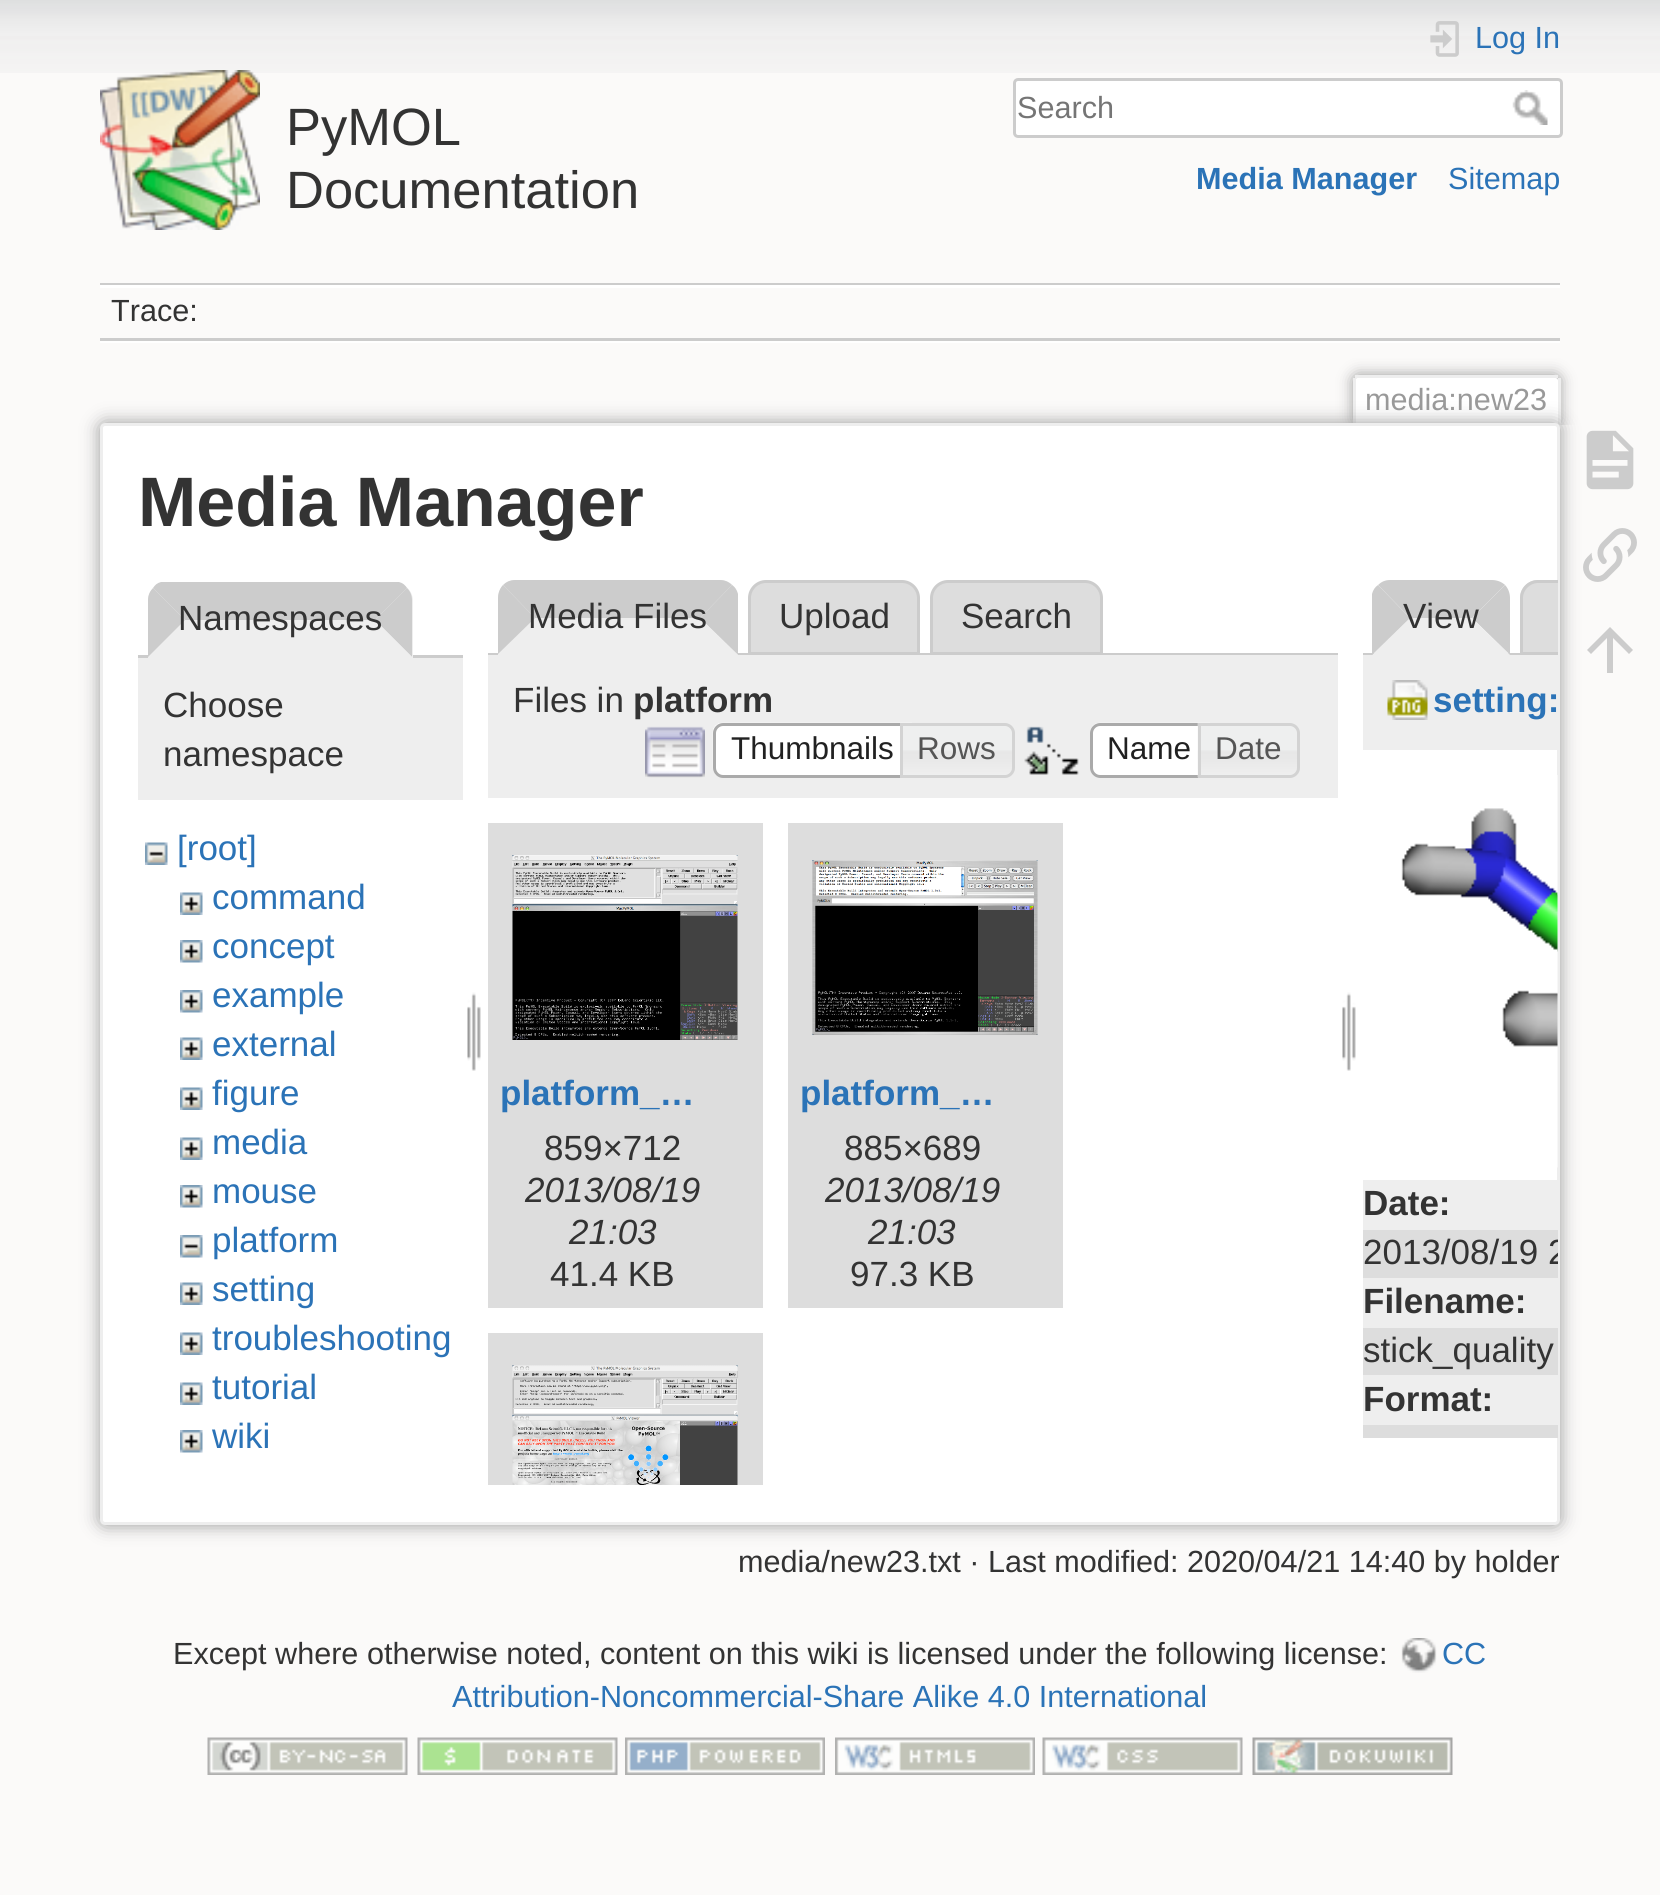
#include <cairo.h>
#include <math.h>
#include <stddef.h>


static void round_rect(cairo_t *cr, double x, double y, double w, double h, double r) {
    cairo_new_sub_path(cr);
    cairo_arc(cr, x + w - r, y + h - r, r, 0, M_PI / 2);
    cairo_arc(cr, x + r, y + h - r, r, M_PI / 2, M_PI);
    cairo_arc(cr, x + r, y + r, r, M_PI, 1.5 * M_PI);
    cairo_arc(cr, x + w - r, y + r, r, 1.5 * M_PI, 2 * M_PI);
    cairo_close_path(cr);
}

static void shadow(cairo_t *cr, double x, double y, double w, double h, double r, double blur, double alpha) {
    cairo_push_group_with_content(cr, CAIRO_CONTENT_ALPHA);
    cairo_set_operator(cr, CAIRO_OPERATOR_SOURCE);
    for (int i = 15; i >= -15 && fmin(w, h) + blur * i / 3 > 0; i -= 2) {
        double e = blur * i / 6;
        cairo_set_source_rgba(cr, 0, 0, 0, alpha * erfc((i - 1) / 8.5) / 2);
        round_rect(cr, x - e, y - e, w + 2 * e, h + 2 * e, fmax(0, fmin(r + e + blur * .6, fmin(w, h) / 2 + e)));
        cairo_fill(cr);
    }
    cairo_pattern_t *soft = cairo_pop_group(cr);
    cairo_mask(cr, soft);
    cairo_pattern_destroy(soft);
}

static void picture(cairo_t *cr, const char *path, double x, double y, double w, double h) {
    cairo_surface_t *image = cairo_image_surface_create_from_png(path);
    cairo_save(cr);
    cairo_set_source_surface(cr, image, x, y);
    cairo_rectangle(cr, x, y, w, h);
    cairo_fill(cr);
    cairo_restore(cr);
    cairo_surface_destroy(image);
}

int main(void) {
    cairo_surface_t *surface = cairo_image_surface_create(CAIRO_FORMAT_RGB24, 1660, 1895);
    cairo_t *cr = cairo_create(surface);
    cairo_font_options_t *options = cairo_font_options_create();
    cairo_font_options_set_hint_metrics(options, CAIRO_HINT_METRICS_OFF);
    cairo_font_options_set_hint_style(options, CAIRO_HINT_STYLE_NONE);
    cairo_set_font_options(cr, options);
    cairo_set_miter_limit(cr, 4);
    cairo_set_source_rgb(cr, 0.984, 0.98, 0.976);
    cairo_paint(cr);
    picture(cr, "img1.png", 0, 0, 1660, 73);
    picture(cr, "img2.png", 100, 70, 160, 160);
    cairo_select_font_face(cr, "Liberation Sans", CAIRO_FONT_SLANT_NORMAL, CAIRO_FONT_WEIGHT_NORMAL);
    cairo_set_font_size(cr, 52.5);
    cairo_set_source_rgb(cr, 0.2, 0.2, 0.2);
    cairo_move_to(cr, 286, 145);
    cairo_show_text(cr, "PyMOL");
    cairo_move_to(cr, 286, 208);
    cairo_show_text(cr, "Documentation");
    picture(cr, "img3.png", 1430, 21, 29, 36);
    cairo_set_font_size(cr, 30.6);
    cairo_set_source_rgb(cr, 0.169, 0.451, 0.718);
    cairo_move_to(cr, 1475, 48);
    cairo_show_text(cr, "Log In");
    cairo_set_source_rgb(cr, 1, 1, 1);
    round_rect(cr, 1014.5, 79.5, 547, 57, 3.5);
    cairo_fill_preserve(cr);
    cairo_set_source_rgb(cr, 0.8, 0.8, 0.8);
    cairo_set_line_width(cr, 3);
    cairo_stroke(cr);
    cairo_set_source_rgb(cr, 0.459, 0.459, 0.459);
    cairo_move_to(cr, 1017, 118);
    cairo_show_text(cr, "Search");
    picture(cr, "img4.png", 1512, 90, 36, 35);
    cairo_select_font_face(cr, "Liberation Sans", CAIRO_FONT_SLANT_NORMAL, CAIRO_FONT_WEIGHT_BOLD);
    cairo_set_source_rgb(cr, 0.169, 0.451, 0.718);
    cairo_move_to(cr, 1196, 189);
    cairo_show_text(cr, "Media Manager");
    cairo_select_font_face(cr, "Liberation Sans", CAIRO_FONT_SLANT_NORMAL, CAIRO_FONT_WEIGHT_NORMAL);
    cairo_move_to(cr, 1448, 189);
    cairo_show_text(cr, "Sitemap");
    cairo_set_source_rgb(cr, 0.8, 0.8, 0.8);
    cairo_rectangle(cr, 100, 283, 1460, 2);
    cairo_fill(cr);
    cairo_set_source_rgb(cr, 1, 1, 1);
    cairo_rectangle(cr, 100, 341, 1460, 2);
    cairo_fill(cr);
    cairo_rectangle(cr, 100, 285, 1460, 3);
    cairo_fill(cr);
    cairo_set_source_rgb(cr, 0.8, 0.8, 0.8);
    cairo_rectangle(cr, 100, 338, 1460, 3);
    cairo_fill(cr);
    cairo_set_source_rgb(cr, 0.2, 0.2, 0.2);
    cairo_move_to(cr, 111, 321);
    cairo_show_text(cr, "Trace:");
    cairo_save(cr);
    cairo_rectangle(cr, 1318, 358, 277, 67);
    cairo_clip(cr);
    cairo_set_source_rgb(cr, 0.6, 0.6, 0.6);
    shadow(cr, 1353, 375, 207, 50, 5, 7.5, 1);
    cairo_restore(cr);
    cairo_set_source_rgb(cr, 1, 1, 1);
    cairo_new_path(cr);
    cairo_move_to(cr, 1357.5, 378);
    cairo_line_to(cr, 1555.5, 378);
    cairo_curve_to(cr, 1557, 378, 1558, 379, 1558, 380.5);
    cairo_line_to(cr, 1558, 425);
    cairo_line_to(cr, 1355, 425);
    cairo_line_to(cr, 1355, 380.5);
    cairo_curve_to(cr, 1355, 379, 1356, 378, 1357.5, 378);
    cairo_close_path(cr);
    cairo_fill(cr);
    cairo_set_source_rgb(cr, 0.933, 0.933, 0.933);
    cairo_rectangle(cr, 1355, 375, 203, 3);
    cairo_fill(cr);
    cairo_rectangle(cr, 1558, 378, 3, 47);
    cairo_fill(cr);
    cairo_rectangle(cr, 1353, 378, 3, 47);
    cairo_fill(cr);
    cairo_set_source_rgb(cr, 0.6, 0.6, 0.6);
    cairo_move_to(cr, 1365, 410);
    cairo_show_text(cr, "media:new23");
    cairo_set_source_rgb(cr, 0.6, 0.6, 0.6);
    shadow(cr, 100, 423, 1460, 1102, 5, 9, 1);
    cairo_set_source_rgb(cr, 1, 1, 1);
    round_rect(cr, 101.5, 424.5, 1457, 1099, 3.5);
    cairo_fill_preserve(cr);
    cairo_set_source_rgb(cr, 0.933, 0.933, 0.933);
    cairo_stroke(cr);
    cairo_select_font_face(cr, "Liberation Sans", CAIRO_FONT_SLANT_NORMAL, CAIRO_FONT_WEIGHT_BOLD);
    cairo_set_font_size(cr, 70);
    cairo_set_source_rgb(cr, 0.2, 0.2, 0.2);
    cairo_move_to(cr, 138, 526);
    cairo_show_text(cr, "Media Manager");
    cairo_set_source_rgb(cr, 0.8, 0.8, 0.8);
    cairo_rectangle(cr, 138, 655, 325, 3);
    cairo_fill(cr);
    cairo_set_source_rgb(cr, 0.933, 0.933, 0.933);
    cairo_new_path(cr);
    cairo_move_to(cr, 166, 583);
    cairo_line_to(cr, 395, 583);
    cairo_curve_to(cr, 405, 583, 413, 591, 413, 601);
    cairo_line_to(cr, 413, 658);
    cairo_line_to(cr, 148, 658);
    cairo_line_to(cr, 148, 601);
    cairo_curve_to(cr, 148, 591, 156, 583, 166, 583);
    cairo_close_path(cr);
    cairo_fill(cr);
    cairo_set_source_rgb(cr, 0.8, 0.8, 0.8);
    cairo_new_path(cr);
    cairo_move_to(cr, 399, 582);
    cairo_line_to(cr, 161, 582);
    cairo_curve_to(cr, 157, 583, 155, 585, 153, 588);
    cairo_line_to(cr, 185, 620);
    cairo_line_to(cr, 375, 620);
    cairo_line_to(cr, 407, 588);
    cairo_curve_to(cr, 405, 585, 403, 583, 399, 582);
    cairo_close_path(cr);
    cairo_fill(cr);
    cairo_new_path(cr);
    cairo_move_to(cr, 407, 588);
    cairo_line_to(cr, 375, 620);
    cairo_line_to(cr, 412, 657);
    cairo_line_to(cr, 412, 600);
    cairo_curve_to(cr, 412, 595, 410, 591, 407, 588);
    cairo_close_path(cr);
    cairo_fill(cr);
    cairo_set_source_rgb(cr, 0.933, 0.933, 0.933);
    cairo_new_path(cr);
    cairo_move_to(cr, 412, 657);
    cairo_line_to(cr, 375, 620);
    cairo_line_to(cr, 185, 620);
    cairo_line_to(cr, 148, 657);
    cairo_line_to(cr, 148, 658);
    cairo_line_to(cr, 412, 658);
    cairo_close_path(cr);
    cairo_fill(cr);
    cairo_set_source_rgb(cr, 0.8, 0.8, 0.8);
    cairo_new_path(cr);
    cairo_move_to(cr, 148, 657);
    cairo_line_to(cr, 185, 620);
    cairo_line_to(cr, 153, 588);
    cairo_curve_to(cr, 150, 591, 148, 595, 148, 600);
    cairo_close_path(cr);
    cairo_fill(cr);
    cairo_select_font_face(cr, "Liberation Sans", CAIRO_FONT_SLANT_NORMAL, CAIRO_FONT_WEIGHT_NORMAL);
    cairo_set_font_size(cr, 35);
    cairo_set_source_rgb(cr, 0.2, 0.2, 0.2);
    cairo_move_to(cr, 178, 630);
    cairo_show_text(cr, "Namespaces");
    cairo_set_source_rgb(cr, 0.933, 0.933, 0.933);
    cairo_rectangle(cr, 138, 658, 325, 142);
    cairo_fill(cr);
    cairo_set_source_rgb(cr, 0.2, 0.2, 0.2);
    cairo_move_to(cr, 163, 717);
    cairo_show_text(cr, "Choose");
    cairo_move_to(cr, 163, 766);
    cairo_show_text(cr, "namespace");
    picture(cr, "img5.png", 145, 842, 23, 23);
    cairo_set_source_rgb(cr, 0.169, 0.451, 0.718);
    cairo_move_to(cr, 177, 860);
    cairo_show_text(cr, "[root]");
    picture(cr, "img6.png", 180, 892, 23, 23);
    cairo_move_to(cr, 212, 909);
    cairo_show_text(cr, "command");
    picture(cr, "img7.png", 180, 940, 23, 23);
    cairo_move_to(cr, 212, 958);
    cairo_show_text(cr, "concept");
    picture(cr, "img7.png", 180, 990, 23, 23);
    cairo_move_to(cr, 212, 1007);
    cairo_show_text(cr, "example");
    picture(cr, "img6.png", 180, 1037, 23, 23);
    cairo_move_to(cr, 212, 1056);
    cairo_show_text(cr, "external");
    picture(cr, "img6.png", 180, 1087, 23, 23);
    cairo_move_to(cr, 212, 1105);
    cairo_show_text(cr, "figure");
    picture(cr, "img6.png", 180, 1137, 23, 23);
    cairo_move_to(cr, 212, 1154);
    cairo_show_text(cr, "media");
    picture(cr, "img7.png", 180, 1185, 23, 23);
    cairo_move_to(cr, 212, 1203);
    cairo_show_text(cr, "mouse");
    picture(cr, "img8.png", 180, 1235, 23, 23);
    cairo_move_to(cr, 212, 1252);
    cairo_show_text(cr, "platform");
    picture(cr, "img6.png", 180, 1282, 23, 23);
    cairo_move_to(cr, 212, 1301);
    cairo_show_text(cr, "setting");
    picture(cr, "img6.png", 180, 1332, 23, 23);
    cairo_move_to(cr, 212, 1350);
    cairo_show_text(cr, "troubleshooting");
    picture(cr, "img6.png", 180, 1382, 23, 23);
    cairo_move_to(cr, 212, 1399);
    cairo_show_text(cr, "tutorial");
    picture(cr, "img7.png", 180, 1430, 23, 23);
    cairo_move_to(cr, 212, 1448);
    cairo_show_text(cr, "wiki");
    picture(cr, "img9.png", 467, 992, 14, 79);
    cairo_set_source_rgb(cr, 0.867, 0.867, 0.867);
    cairo_new_path(cr);
    cairo_move_to(cr, 766, 581.5);
    cairo_line_to(cr, 902, 581.5);
    cairo_curve_to(cr, 911, 581.5, 918.5, 589, 918.5, 598);
    cairo_line_to(cr, 918.5, 653.5);
    cairo_line_to(cr, 749.5, 653.5);
    cairo_line_to(cr, 749.5, 598);
    cairo_curve_to(cr, 749.5, 589, 757, 581.5, 766, 581.5);
    cairo_close_path(cr);
    cairo_fill_preserve(cr);
    cairo_set_source_rgb(cr, 0.8, 0.8, 0.8);
    cairo_stroke(cr);
    cairo_set_source_rgb(cr, 0.867, 0.867, 0.867);
    cairo_new_path(cr);
    cairo_move_to(cr, 948, 581.5);
    cairo_line_to(cr, 1085, 581.5);
    cairo_curve_to(cr, 1094, 581.5, 1101.5, 589, 1101.5, 598);
    cairo_line_to(cr, 1101.5, 653.5);
    cairo_line_to(cr, 931.5, 653.5);
    cairo_line_to(cr, 931.5, 598);
    cairo_curve_to(cr, 931.5, 589, 939, 581.5, 948, 581.5);
    cairo_close_path(cr);
    cairo_fill_preserve(cr);
    cairo_set_source_rgb(cr, 0.8, 0.8, 0.8);
    cairo_stroke(cr);
    cairo_rectangle(cr, 488, 653, 850, 2);
    cairo_fill(cr);
    cairo_set_source_rgb(cr, 0.933, 0.933, 0.933);
    cairo_new_path(cr);
    cairo_move_to(cr, 516, 580);
    cairo_line_to(cr, 720, 580);
    cairo_curve_to(cr, 730, 580, 738, 588, 738, 598);
    cairo_line_to(cr, 738, 655);
    cairo_line_to(cr, 498, 655);
    cairo_line_to(cr, 498, 598);
    cairo_curve_to(cr, 498, 588, 506, 580, 516, 580);
    cairo_close_path(cr);
    cairo_fill(cr);
    cairo_set_source_rgb(cr, 0.8, 0.8, 0.8);
    cairo_new_path(cr);
    cairo_move_to(cr, 515, 580);
    cairo_line_to(cr, 720, 580);
    cairo_curve_to(cr, 725, 580, 729, 582, 732, 585);
    cairo_line_to(cr, 700, 618);
    cairo_line_to(cr, 535, 618);
    cairo_line_to(cr, 503, 585);
    cairo_curve_to(cr, 506, 582, 510, 580, 515, 580);
    cairo_close_path(cr);
    cairo_fill(cr);
    cairo_new_path(cr);
    cairo_move_to(cr, 732, 585);
    cairo_line_to(cr, 700, 618);
    cairo_line_to(cr, 738, 655);
    cairo_line_to(cr, 738, 594);
    cairo_curve_to(cr, 737, 590, 735, 587, 732, 585);
    cairo_close_path(cr);
    cairo_fill(cr);
    cairo_set_source_rgb(cr, 0.933, 0.933, 0.933);
    cairo_new_path(cr);
    cairo_move_to(cr, 738, 655);
    cairo_line_to(cr, 700, 618);
    cairo_line_to(cr, 535, 618);
    cairo_line_to(cr, 498, 654);
    cairo_line_to(cr, 498, 655);
    cairo_close_path(cr);
    cairo_fill(cr);
    cairo_set_source_rgb(cr, 0.8, 0.8, 0.8);
    cairo_new_path(cr);
    cairo_move_to(cr, 503, 585);
    cairo_curve_to(cr, 500, 588, 498, 593, 498, 598);
    cairo_line_to(cr, 498, 654);
    cairo_line_to(cr, 535, 618);
    cairo_close_path(cr);
    cairo_fill(cr);
    cairo_set_source_rgb(cr, 0.2, 0.2, 0.2);
    cairo_move_to(cr, 528, 628);
    cairo_show_text(cr, "Media Files");
    cairo_move_to(cr, 779, 628);
    cairo_show_text(cr, "Upload");
    cairo_move_to(cr, 961, 628);
    cairo_show_text(cr, "Search");
    cairo_set_source_rgb(cr, 0.933, 0.933, 0.933);
    cairo_rectangle(cr, 488, 655, 850, 143);
    cairo_fill(cr);
    cairo_set_source_rgb(cr, 0.2, 0.2, 0.2);
    cairo_move_to(cr, 513, 712);
    cairo_show_text(cr, "Files in");
    cairo_select_font_face(cr, "Liberation Sans", CAIRO_FONT_SLANT_NORMAL, CAIRO_FONT_WEIGHT_BOLD);
    cairo_move_to(cr, 633, 712);
    cairo_show_text(cr, "platform");
    picture(cr, "img10.png", 645, 726, 60, 52);
    picture(cr, "img11.png", 712, 722, 200, 53);
    cairo_new_path(cr);
    cairo_move_to(cr, 723, 724.5);
    cairo_line_to(cr, 911.5, 724.5);
    cairo_line_to(cr, 911.5, 776.5);
    cairo_line_to(cr, 723, 776.5);
    cairo_curve_to(cr, 718.5, 776.5, 714.5, 772.5, 714.5, 768);
    cairo_line_to(cr, 714.5, 733);
    cairo_curve_to(cr, 714.5, 728.5, 718.5, 724.5, 723, 724.5);
    cairo_close_path(cr);
    cairo_set_source_rgb(cr, 0.667, 0.667, 0.667);
    cairo_stroke(cr);
    cairo_select_font_face(cr, "Liberation Sans", CAIRO_FONT_SLANT_NORMAL, CAIRO_FONT_WEIGHT_NORMAL);
    cairo_set_font_size(cr, 31.5);
    cairo_set_source_rgb(cr, 0.129, 0.129, 0.129);
    cairo_move_to(cr, 731, 759);
    cairo_show_text(cr, "Thumbnails");
    picture(cr, "img12.png", 903, 723, 112, 54);
    cairo_new_path(cr);
    cairo_move_to(cr, 901.5, 724.5);
    cairo_line_to(cr, 1005, 724.5);
    cairo_curve_to(cr, 1009.5, 724.5, 1013.5, 728.5, 1013.5, 733);
    cairo_line_to(cr, 1013.5, 768);
    cairo_curve_to(cr, 1013.5, 772.5, 1009.5, 776.5, 1005, 776.5);
    cairo_line_to(cr, 901.5, 776.5);
    cairo_close_path(cr);
    cairo_set_source_rgb(cr, 0.827, 0.827, 0.827);
    cairo_stroke(cr);
    cairo_set_source_rgb(cr, 0.333, 0.333, 0.333);
    cairo_move_to(cr, 917, 759);
    cairo_show_text(cr, "Rows");
    picture(cr, "img13.png", 1024, 726, 55, 49);
    cairo_set_source_rgb(cr, 1, 1, 1);
    cairo_new_path(cr);
    cairo_move_to(cr, 1100, 723);
    cairo_line_to(cr, 1210, 723);
    cairo_line_to(cr, 1210, 778);
    cairo_line_to(cr, 1100, 778);
    cairo_curve_to(cr, 1094.5, 778, 1090, 773.5, 1090, 768);
    cairo_line_to(cr, 1090, 733);
    cairo_curve_to(cr, 1090, 727.5, 1094.5, 723, 1100, 723);
    cairo_close_path(cr);
    cairo_fill(cr);
    picture(cr, "img14.png", 1090, 722, 120, 9);
    cairo_new_path(cr);
    cairo_move_to(cr, 1100, 724.5);
    cairo_line_to(cr, 1208.5, 724.5);
    cairo_line_to(cr, 1208.5, 776.5);
    cairo_line_to(cr, 1100, 776.5);
    cairo_curve_to(cr, 1095.5, 776.5, 1091.5, 772.5, 1091.5, 768);
    cairo_line_to(cr, 1091.5, 733);
    cairo_curve_to(cr, 1091.5, 728.5, 1095.5, 724.5, 1100, 724.5);
    cairo_close_path(cr);
    cairo_set_source_rgb(cr, 0.667, 0.667, 0.667);
    cairo_stroke(cr);
    cairo_set_source_rgb(cr, 0.129, 0.129, 0.129);
    cairo_move_to(cr, 1107, 759);
    cairo_show_text(cr, "Name");
    picture(cr, "img15.png", 1197, 723, 103, 55);
    cairo_new_path(cr);
    cairo_move_to(cr, 1199.5, 724.5);
    cairo_line_to(cr, 1290, 724.5);
    cairo_curve_to(cr, 1294.5, 724.5, 1298.5, 728.5, 1298.5, 733);
    cairo_line_to(cr, 1298.5, 768);
    cairo_curve_to(cr, 1298.5, 772.5, 1294.5, 776.5, 1290, 776.5);
    cairo_line_to(cr, 1199.5, 776.5);
    cairo_close_path(cr);
    cairo_set_source_rgb(cr, 0.827, 0.827, 0.827);
    cairo_stroke(cr);
    cairo_set_source_rgb(cr, 0.333, 0.333, 0.333);
    cairo_move_to(cr, 1215, 759);
    cairo_show_text(cr, "Date");
    picture(cr, "img16.png", 1342, 992, 14, 79);
    cairo_set_source_rgb(cr, 0.867, 0.867, 0.867);
    cairo_rectangle(cr, 488, 823, 275, 485);
    cairo_fill(cr);
    picture(cr, "img17.png", 512, 855, 226, 185);
    cairo_select_font_face(cr, "Liberation Sans", CAIRO_FONT_SLANT_NORMAL, CAIRO_FONT_WEIGHT_BOLD);
    cairo_set_font_size(cr, 35);
    cairo_set_source_rgb(cr, 0.169, 0.451, 0.718);
    cairo_move_to(cr, 500, 1105);
    cairo_show_text(cr, "platform_…");
    cairo_select_font_face(cr, "Liberation Sans", CAIRO_FONT_SLANT_NORMAL, CAIRO_FONT_WEIGHT_NORMAL);
    cairo_set_source_rgb(cr, 0.2, 0.2, 0.2);
    cairo_move_to(cr, 544, 1160);
    cairo_show_text(cr, "859×712");
    cairo_select_font_face(cr, "Liberation Sans", CAIRO_FONT_SLANT_ITALIC, CAIRO_FONT_WEIGHT_NORMAL);
    cairo_move_to(cr, 525, 1202);
    cairo_show_text(cr, "2013/08/19");
    cairo_move_to(cr, 569, 1244);
    cairo_show_text(cr, "21:03");
    cairo_select_font_face(cr, "Liberation Sans", CAIRO_FONT_SLANT_NORMAL, CAIRO_FONT_WEIGHT_NORMAL);
    cairo_move_to(cr, 550, 1286);
    cairo_show_text(cr, "41.4 KB");
    cairo_set_source_rgb(cr, 0.867, 0.867, 0.867);
    cairo_rectangle(cr, 788, 823, 275, 485);
    cairo_fill(cr);
    picture(cr, "img18.png", 812, 860, 226, 175);
    cairo_select_font_face(cr, "Liberation Sans", CAIRO_FONT_SLANT_NORMAL, CAIRO_FONT_WEIGHT_BOLD);
    cairo_set_source_rgb(cr, 0.169, 0.451, 0.718);
    cairo_move_to(cr, 800, 1105);
    cairo_show_text(cr, "platform_…");
    cairo_select_font_face(cr, "Liberation Sans", CAIRO_FONT_SLANT_NORMAL, CAIRO_FONT_WEIGHT_NORMAL);
    cairo_set_source_rgb(cr, 0.2, 0.2, 0.2);
    cairo_move_to(cr, 844, 1160);
    cairo_show_text(cr, "885×689");
    cairo_select_font_face(cr, "Liberation Sans", CAIRO_FONT_SLANT_ITALIC, CAIRO_FONT_WEIGHT_NORMAL);
    cairo_move_to(cr, 825, 1202);
    cairo_show_text(cr, "2013/08/19");
    cairo_move_to(cr, 868, 1244);
    cairo_show_text(cr, "21:03");
    cairo_select_font_face(cr, "Liberation Sans", CAIRO_FONT_SLANT_NORMAL, CAIRO_FONT_WEIGHT_NORMAL);
    cairo_move_to(cr, 850, 1286);
    cairo_show_text(cr, "97.3 KB");
    cairo_set_source_rgb(cr, 0.867, 0.867, 0.867);
    cairo_rectangle(cr, 488, 1333, 275, 152);
    cairo_fill(cr);
    picture(cr, "img19.png", 512, 1365, 226, 120);
    cairo_set_source_rgb(cr, 0.8, 0.8, 0.8);
    cairo_new_path(cr);
    cairo_move_to(cr, 1390, 580);
    cairo_line_to(cr, 1492, 580);
    cairo_curve_to(cr, 1497, 580, 1502, 582, 1505, 585);
    cairo_line_to(cr, 1472, 618);
    cairo_line_to(cr, 1410, 618);
    cairo_line_to(cr, 1378, 585);
    cairo_curve_to(cr, 1381, 582, 1385, 580, 1390, 580);
    cairo_close_path(cr);
    cairo_fill(cr);
    cairo_rectangle(cr, 1363, 653, 157, 2);
    cairo_fill(cr);
    cairo_new_path(cr);
    cairo_move_to(cr, 1505, 585);
    cairo_line_to(cr, 1472, 618);
    cairo_line_to(cr, 1510, 655);
    cairo_line_to(cr, 1510, 598);
    cairo_curve_to(cr, 1510, 593, 1508, 588, 1505, 585);
    cairo_close_path(cr);
    cairo_fill(cr);
    cairo_set_source_rgb(cr, 0.933, 0.933, 0.933);
    cairo_new_path(cr);
    cairo_move_to(cr, 1510, 655);
    cairo_line_to(cr, 1472, 618);
    cairo_line_to(cr, 1410, 618);
    cairo_line_to(cr, 1372, 655);
    cairo_close_path(cr);
    cairo_fill(cr);
    cairo_set_source_rgb(cr, 0.8, 0.8, 0.8);
    cairo_new_path(cr);
    cairo_move_to(cr, 1372, 655);
    cairo_line_to(cr, 1410, 618);
    cairo_line_to(cr, 1378, 585);
    cairo_curve_to(cr, 1375, 587, 1373, 590, 1372, 594);
    cairo_close_path(cr);
    cairo_fill(cr);
    cairo_set_source_rgb(cr, 0.2, 0.2, 0.2);
    cairo_move_to(cr, 1403, 628);
    cairo_show_text(cr, "View");
    cairo_set_source_rgb(cr, 0.867, 0.867, 0.867);
    cairo_new_path(cr);
    cairo_move_to(cr, 1538, 580);
    cairo_line_to(cr, 1558, 580);
    cairo_line_to(cr, 1558, 655);
    cairo_line_to(cr, 1520, 655);
    cairo_line_to(cr, 1520, 598);
    cairo_curve_to(cr, 1520, 588, 1528, 580, 1538, 580);
    cairo_close_path(cr);
    cairo_fill(cr);
    cairo_set_source_rgb(cr, 0.8, 0.8, 0.8);
    cairo_new_path(cr);
    cairo_move_to(cr, 1538, 580);
    cairo_curve_to(cr, 1528, 580, 1520, 588, 1520, 598);
    cairo_line_to(cr, 1520, 655);
    cairo_line_to(cr, 1558, 655);
    cairo_line_to(cr, 1558, 652);
    cairo_line_to(cr, 1523, 652);
    cairo_line_to(cr, 1523, 598);
    cairo_curve_to(cr, 1523, 590, 1530, 583, 1538, 583);
    cairo_line_to(cr, 1558, 583);
    cairo_line_to(cr, 1558, 580);
    cairo_close_path(cr);
    cairo_fill(cr);
    cairo_set_source_rgb(cr, 0.933, 0.933, 0.933);
    cairo_rectangle(cr, 1363, 655, 194, 95);
    cairo_fill(cr);
    picture(cr, "img20.png", 1387, 680, 41, 40);
    cairo_select_font_face(cr, "Liberation Sans", CAIRO_FONT_SLANT_NORMAL, CAIRO_FONT_WEIGHT_BOLD);
    cairo_set_source_rgb(cr, 0.169, 0.451, 0.718);
    cairo_move_to(cr, 1433, 712);
    cairo_show_text(cr, "setting:");
    picture(cr, "img21.png", 1401, 775, 157, 393);
    cairo_set_source_rgb(cr, 0.933, 0.933, 0.933);
    cairo_rectangle(cr, 1363, 1180, 194, 50);
    cairo_fill(cr);
    cairo_set_source_rgb(cr, 0.2, 0.2, 0.2);
    cairo_move_to(cr, 1363, 1215);
    cairo_show_text(cr, "Date:");
    cairo_set_source_rgb(cr, 0.867, 0.867, 0.867);
    cairo_rectangle(cr, 1363, 1230, 195, 48);
    cairo_fill(cr);
    cairo_save(cr);
    round_rect(cr, 103, 425, 1455, 1098, 2.5);
    cairo_clip(cr);
    cairo_select_font_face(cr, "Liberation Sans", CAIRO_FONT_SLANT_NORMAL, CAIRO_FONT_WEIGHT_NORMAL);
    cairo_set_source_rgb(cr, 0.2, 0.2, 0.2);
    cairo_move_to(cr, 1363, 1264);
    cairo_show_text(cr, "2013/08/19 2");
    cairo_restore(cr);
    cairo_set_source_rgb(cr, 0.933, 0.933, 0.933);
    cairo_rectangle(cr, 1363, 1278, 194, 50);
    cairo_fill(cr);
    cairo_set_source_rgb(cr, 0.2, 0.2, 0.2);
    cairo_move_to(cr, 1363, 1313);
    cairo_show_text(cr, "Filename:");
    cairo_set_source_rgb(cr, 0.867, 0.867, 0.867);
    cairo_rectangle(cr, 1363, 1328, 195, 47);
    cairo_fill(cr);
    cairo_select_font_face(cr, "Liberation Sans", CAIRO_FONT_SLANT_NORMAL, CAIRO_FONT_WEIGHT_NORMAL);
    cairo_set_source_rgb(cr, 0.2, 0.2, 0.2);
    cairo_move_to(cr, 1363, 1362);
    cairo_show_text(cr, "stick_quality");
    cairo_set_source_rgb(cr, 0.933, 0.933, 0.933);
    cairo_rectangle(cr, 1363, 1375, 194, 50);
    cairo_fill(cr);
    cairo_select_font_face(cr, "Liberation Sans", CAIRO_FONT_SLANT_NORMAL, CAIRO_FONT_WEIGHT_BOLD);
    cairo_set_source_rgb(cr, 0.2, 0.2, 0.2);
    cairo_move_to(cr, 1363, 1411);
    cairo_show_text(cr, "Format:");
    cairo_set_source_rgb(cr, 0.867, 0.867, 0.867);
    cairo_rectangle(cr, 1363, 1425, 195, 13);
    cairo_fill(cr);
    cairo_select_font_face(cr, "Liberation Sans", CAIRO_FONT_SLANT_NORMAL, CAIRO_FONT_WEIGHT_NORMAL);
    cairo_set_font_size(cr, 30.6);
    cairo_set_source_rgb(cr, 0.2, 0.2, 0.2);
    cairo_move_to(cr, 738, 1572);
    cairo_show_text(cr, "media/new23.txt · Last modified: 2020/04/21 14:40 by holder");
    picture(cr, "img22.png", 1586, 430, 48, 60);
    picture(cr, "img23.png", 1583, 528, 54, 54);
    cairo_set_source_rgb(cr, 0.8, 0.8, 0.8);
    cairo_new_path(cr);
    cairo_move_to(cr, 1613, 673);
    cairo_line_to(cr, 1607, 673);
    cairo_line_to(cr, 1607, 638);
    cairo_line_to(cr, 1591, 654);
    cairo_line_to(cr, 1587, 650);
    cairo_line_to(cr, 1610, 627);
    cairo_line_to(cr, 1633, 650);
    cairo_line_to(cr, 1629, 654);
    cairo_line_to(cr, 1613, 638);
    cairo_close_path(cr);
    cairo_fill(cr);
    cairo_set_source_rgb(cr, 0.2, 0.2, 0.2);
    cairo_move_to(cr, 173, 1664);
    cairo_show_text(cr, "Except where otherwise noted, content on this wiki is licensed under the following license:");
    picture(cr, "img24.png", 1401, 1638, 36, 35);
    cairo_set_source_rgb(cr, 0.169, 0.451, 0.718);
    cairo_move_to(cr, 1442, 1664);
    cairo_show_text(cr, "CC");
    cairo_move_to(cr, 452, 1707);
    cairo_show_text(cr, "Attribution-Noncommercial-Share Alike 4.0 International");
    picture(cr, "img25.png", 207, 1737, 201, 38);
    picture(cr, "img26.png", 417, 1737, 201, 38);
    picture(cr, "img27.png", 625, 1737, 200, 38);
    picture(cr, "img28.png", 835, 1737, 200, 38);
    picture(cr, "img29.png", 1042, 1737, 201, 38);
    picture(cr, "img30.png", 1252, 1737, 201, 38);
    cairo_surface_write_to_png(surface, "page.png");
    cairo_font_options_destroy(options);
    cairo_destroy(cr);
    cairo_surface_destroy(surface);
    return 0;
}
